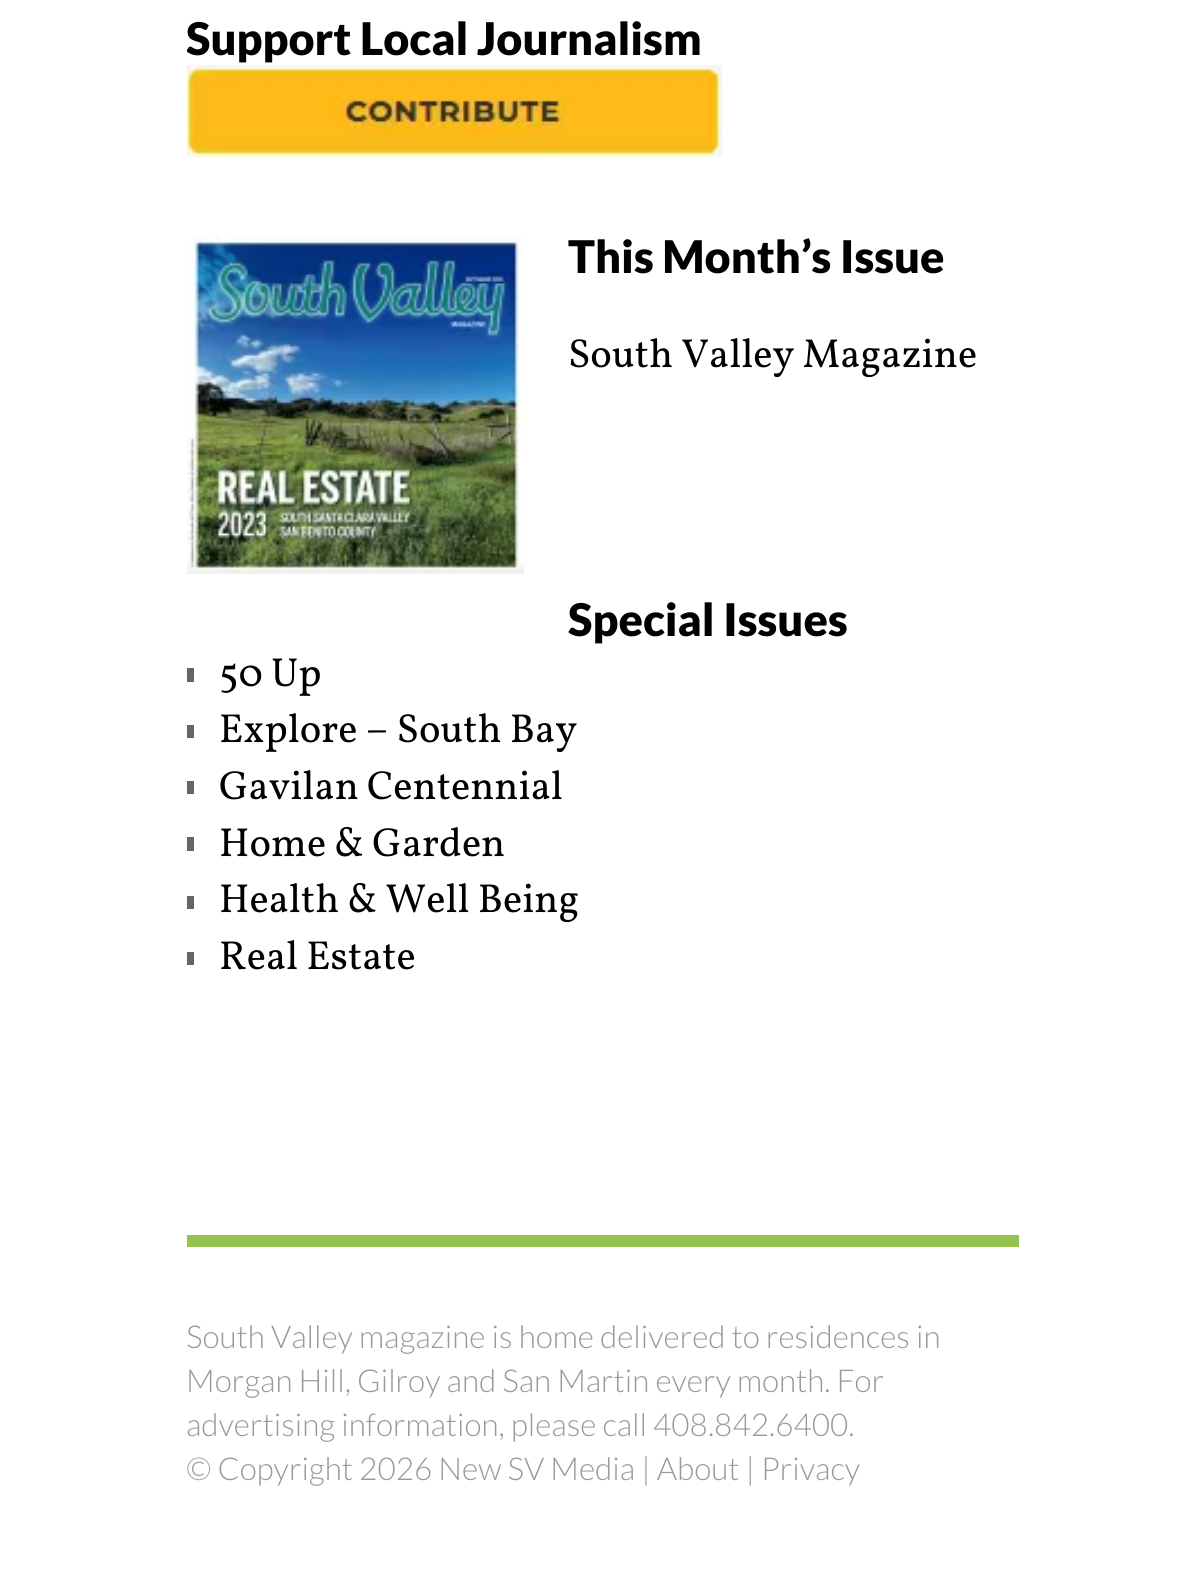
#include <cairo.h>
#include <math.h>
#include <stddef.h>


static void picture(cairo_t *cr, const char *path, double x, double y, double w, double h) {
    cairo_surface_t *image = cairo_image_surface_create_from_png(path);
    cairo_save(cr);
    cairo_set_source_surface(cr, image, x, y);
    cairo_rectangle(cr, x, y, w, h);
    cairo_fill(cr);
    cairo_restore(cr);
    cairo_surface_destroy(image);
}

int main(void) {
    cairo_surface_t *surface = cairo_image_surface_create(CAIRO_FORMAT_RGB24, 1203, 1579);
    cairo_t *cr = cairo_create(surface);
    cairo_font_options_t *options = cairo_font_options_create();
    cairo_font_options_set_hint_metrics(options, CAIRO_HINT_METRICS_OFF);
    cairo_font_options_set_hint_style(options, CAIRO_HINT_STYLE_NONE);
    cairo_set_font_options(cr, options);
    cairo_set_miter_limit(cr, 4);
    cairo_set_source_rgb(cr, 1, 1, 1);
    cairo_paint(cr);
    cairo_save(cr);
    cairo_rectangle(cr, 187, 7, 832, 151);
    cairo_clip(cr);
    cairo_select_font_face(cr, "Lato Black", CAIRO_FONT_SLANT_NORMAL, CAIRO_FONT_WEIGHT_NORMAL);
    cairo_set_font_size(cr, 45);
    cairo_set_source_rgb(cr, 0, 0, 0);
    cairo_move_to(cr, 186, 55);
    cairo_show_text(cr, "Support Local Journalism");
    cairo_restore(cr);
    picture(cr, "img1.png", 186, 65, 537, 93);
    picture(cr, "img2.png", 187, 236, 338, 338);
    cairo_select_font_face(cr, "Lato Black", CAIRO_FONT_SLANT_NORMAL, CAIRO_FONT_WEIGHT_NORMAL);
    cairo_set_font_size(cr, 45);
    cairo_set_source_rgb(cr, 0, 0, 0);
    cairo_move_to(cr, 568, 273);
    cairo_show_text(cr, "This Month’s Issue");
    cairo_select_font_face(cr, "Vollkorn", CAIRO_FONT_SLANT_NORMAL, CAIRO_FONT_WEIGHT_NORMAL);
    cairo_set_font_size(cr, 40.5);
    cairo_move_to(cr, 568, 367);
    cairo_show_text(cr, "South Valley Magazine");
    cairo_select_font_face(cr, "Lato Black", CAIRO_FONT_SLANT_NORMAL, CAIRO_FONT_WEIGHT_NORMAL);
    cairo_set_font_size(cr, 45);
    cairo_move_to(cr, 568, 636);
    cairo_show_text(cr, "Special Issues");
    cairo_set_source_rgb(cr, 0.4, 0.4, 0.4);
    cairo_rectangle(cr, 187, 668, 7, 14);
    cairo_fill(cr);
    cairo_select_font_face(cr, "Vollkorn", CAIRO_FONT_SLANT_NORMAL, CAIRO_FONT_WEIGHT_NORMAL);
    cairo_set_font_size(cr, 40.5);
    cairo_set_source_rgb(cr, 0, 0, 0);
    cairo_move_to(cr, 219, 686);
    cairo_show_text(cr, "50 Up");
    cairo_set_source_rgb(cr, 0.4, 0.4, 0.4);
    cairo_rectangle(cr, 187, 725, 7, 13);
    cairo_fill(cr);
    cairo_set_source_rgb(cr, 0, 0, 0);
    cairo_move_to(cr, 219, 742);
    cairo_show_text(cr, "Explore – South Bay");
    cairo_set_source_rgb(cr, 0.4, 0.4, 0.4);
    cairo_rectangle(cr, 187, 781, 7, 13);
    cairo_fill(cr);
    cairo_set_source_rgb(cr, 0, 0, 0);
    cairo_move_to(cr, 219, 799);
    cairo_show_text(cr, "Gavilan Centennial");
    cairo_set_source_rgb(cr, 0.4, 0.4, 0.4);
    cairo_rectangle(cr, 187, 837, 7, 14);
    cairo_fill(cr);
    cairo_set_source_rgb(cr, 0, 0, 0);
    cairo_move_to(cr, 219, 856);
    cairo_show_text(cr, "Home & Garden");
    cairo_set_source_rgb(cr, 0.4, 0.4, 0.4);
    cairo_rectangle(cr, 187, 896, 7, 13);
    cairo_fill(cr);
    cairo_set_source_rgb(cr, 0, 0, 0);
    cairo_move_to(cr, 219, 912);
    cairo_show_text(cr, "Health & Well Being");
    cairo_set_source_rgb(cr, 0.4, 0.4, 0.4);
    cairo_rectangle(cr, 187, 952, 7, 13);
    cairo_fill(cr);
    cairo_set_source_rgb(cr, 0, 0, 0);
    cairo_move_to(cr, 219, 969);
    cairo_show_text(cr, "Real Estate");
    cairo_set_source_rgb(cr, 0.58, 0.765, 0.314);
    cairo_rectangle(cr, 187, 1235, 832, 12);
    cairo_fill(cr);
    cairo_select_font_face(cr, "Lato Light", CAIRO_FONT_SLANT_NORMAL, CAIRO_FONT_WEIGHT_NORMAL);
    cairo_set_font_size(cr, 31.5);
    cairo_set_source_rgb(cr, 0.6, 0.6, 0.6);
    cairo_move_to(cr, 186, 1348);
    cairo_show_text(cr, "South Valley magazine is home delivered to residences in");
    cairo_move_to(cr, 186, 1392);
    cairo_show_text(cr, "Morgan Hill, Gilroy and San Martin every month. For");
    cairo_move_to(cr, 186, 1436);
    cairo_show_text(cr, "advertising information, please call 408.842.6400.");
    cairo_move_to(cr, 186, 1480);
    cairo_show_text(cr, "© Copyright 2026 New SV Media | About | Privacy");
    cairo_surface_write_to_png(surface, "page.png");
    cairo_font_options_destroy(options);
    cairo_destroy(cr);
    cairo_surface_destroy(surface);
    return 0;
}
